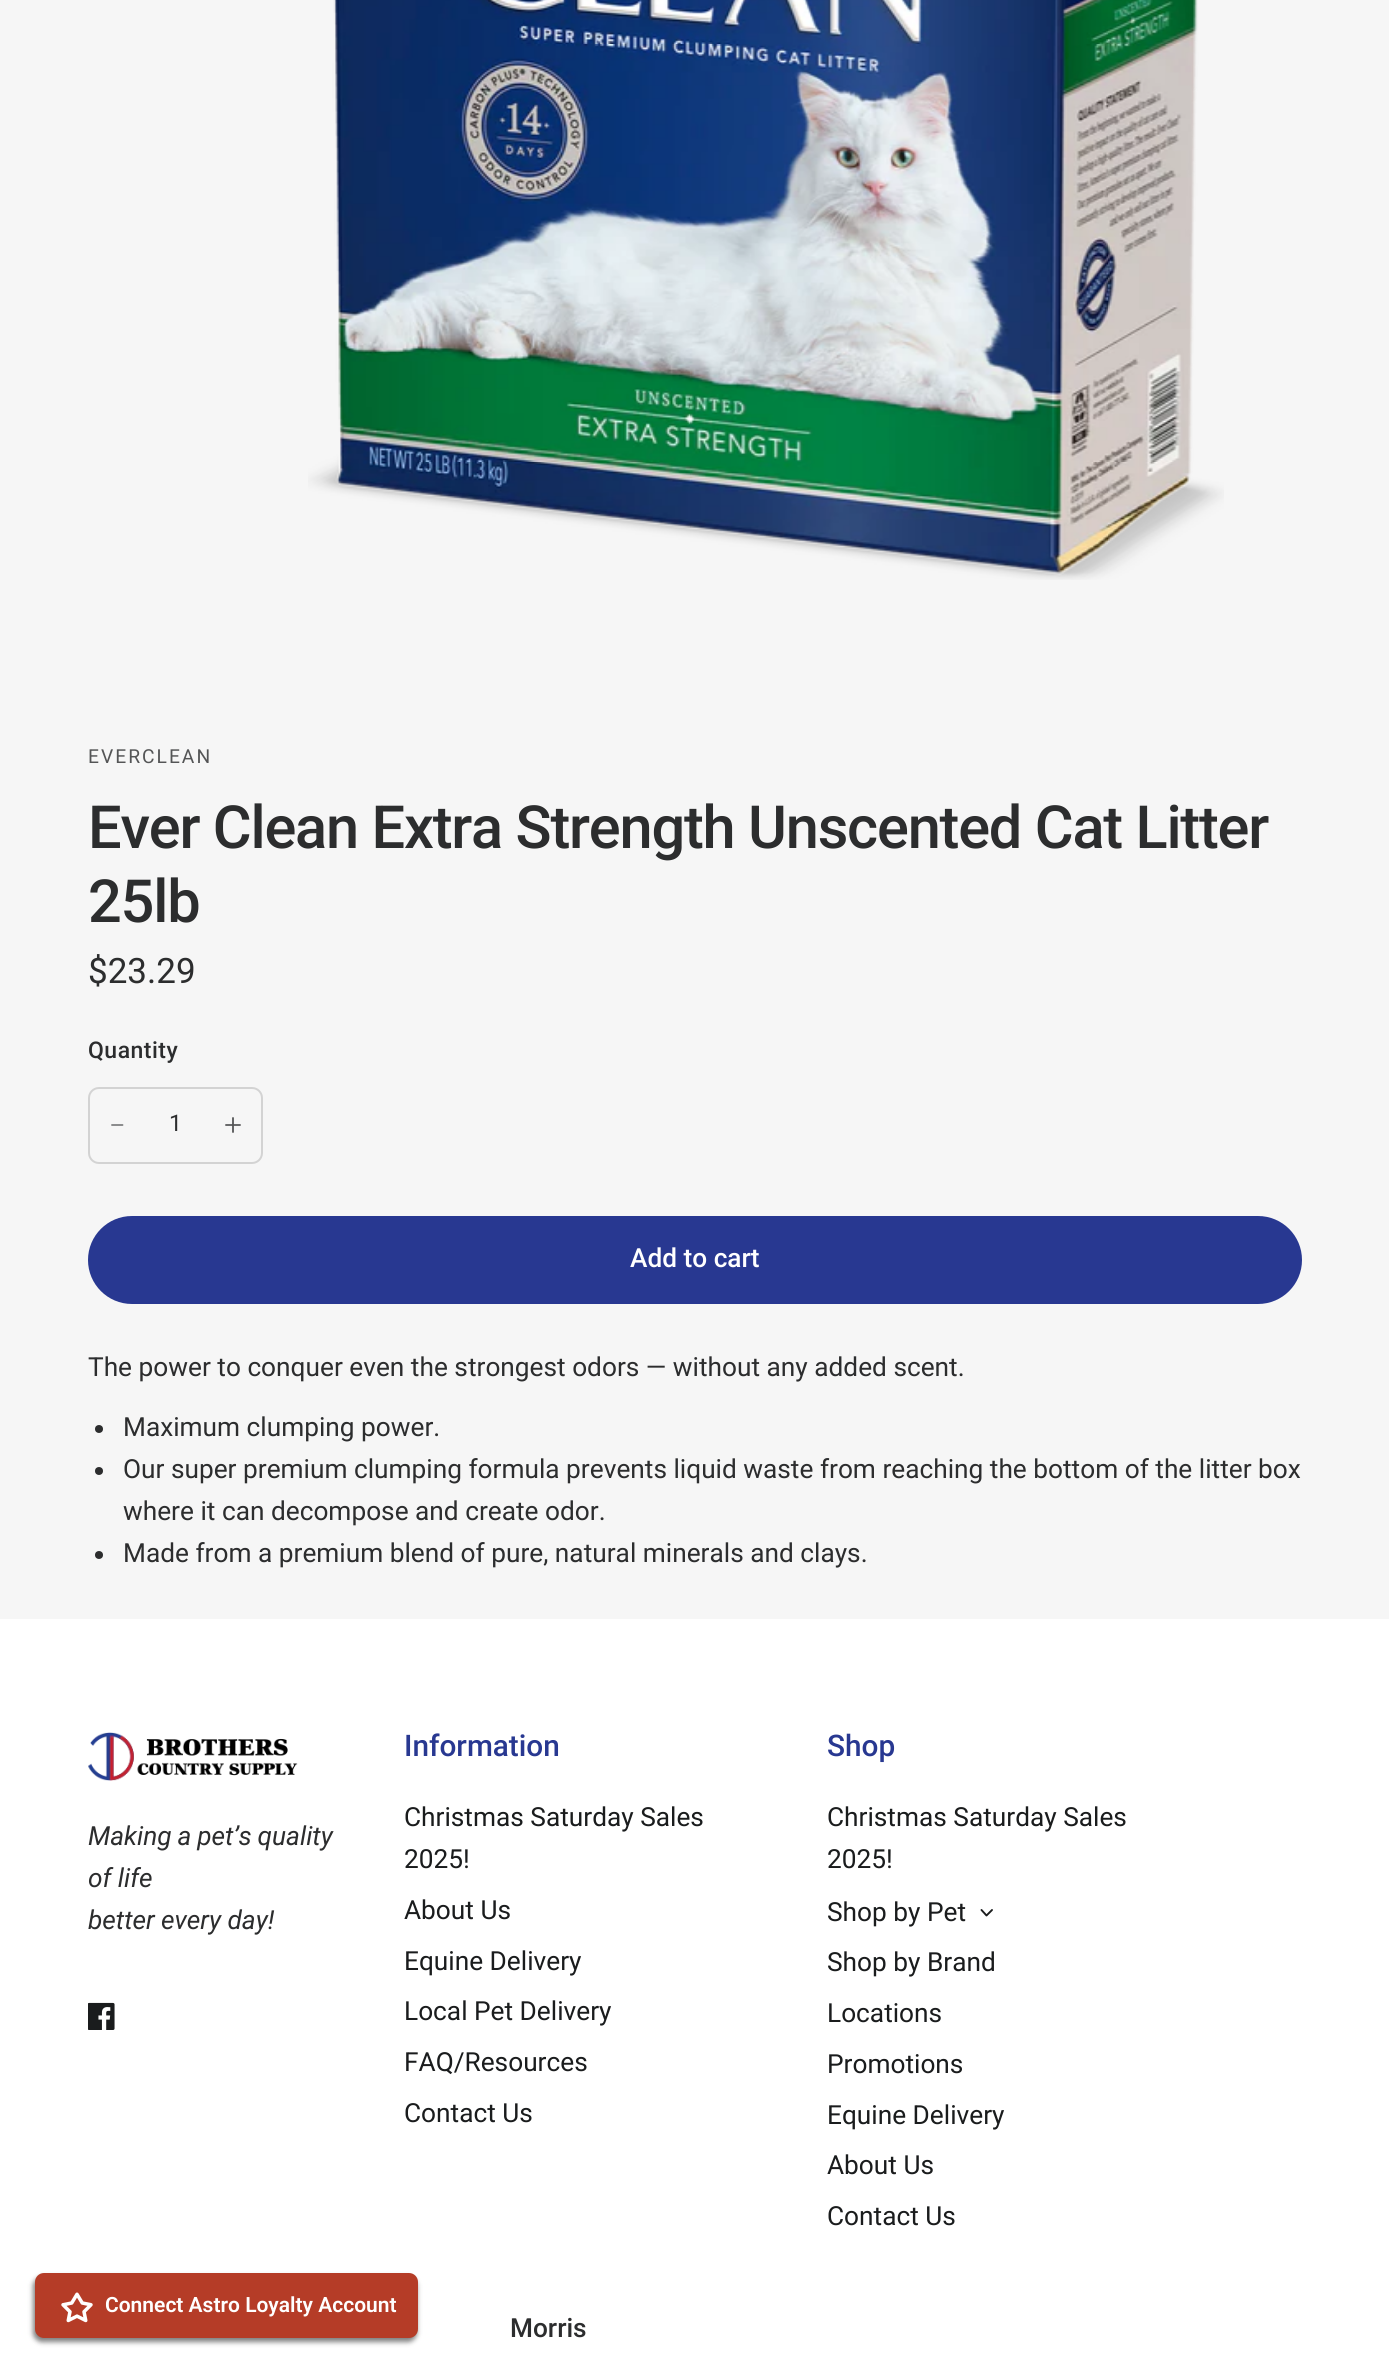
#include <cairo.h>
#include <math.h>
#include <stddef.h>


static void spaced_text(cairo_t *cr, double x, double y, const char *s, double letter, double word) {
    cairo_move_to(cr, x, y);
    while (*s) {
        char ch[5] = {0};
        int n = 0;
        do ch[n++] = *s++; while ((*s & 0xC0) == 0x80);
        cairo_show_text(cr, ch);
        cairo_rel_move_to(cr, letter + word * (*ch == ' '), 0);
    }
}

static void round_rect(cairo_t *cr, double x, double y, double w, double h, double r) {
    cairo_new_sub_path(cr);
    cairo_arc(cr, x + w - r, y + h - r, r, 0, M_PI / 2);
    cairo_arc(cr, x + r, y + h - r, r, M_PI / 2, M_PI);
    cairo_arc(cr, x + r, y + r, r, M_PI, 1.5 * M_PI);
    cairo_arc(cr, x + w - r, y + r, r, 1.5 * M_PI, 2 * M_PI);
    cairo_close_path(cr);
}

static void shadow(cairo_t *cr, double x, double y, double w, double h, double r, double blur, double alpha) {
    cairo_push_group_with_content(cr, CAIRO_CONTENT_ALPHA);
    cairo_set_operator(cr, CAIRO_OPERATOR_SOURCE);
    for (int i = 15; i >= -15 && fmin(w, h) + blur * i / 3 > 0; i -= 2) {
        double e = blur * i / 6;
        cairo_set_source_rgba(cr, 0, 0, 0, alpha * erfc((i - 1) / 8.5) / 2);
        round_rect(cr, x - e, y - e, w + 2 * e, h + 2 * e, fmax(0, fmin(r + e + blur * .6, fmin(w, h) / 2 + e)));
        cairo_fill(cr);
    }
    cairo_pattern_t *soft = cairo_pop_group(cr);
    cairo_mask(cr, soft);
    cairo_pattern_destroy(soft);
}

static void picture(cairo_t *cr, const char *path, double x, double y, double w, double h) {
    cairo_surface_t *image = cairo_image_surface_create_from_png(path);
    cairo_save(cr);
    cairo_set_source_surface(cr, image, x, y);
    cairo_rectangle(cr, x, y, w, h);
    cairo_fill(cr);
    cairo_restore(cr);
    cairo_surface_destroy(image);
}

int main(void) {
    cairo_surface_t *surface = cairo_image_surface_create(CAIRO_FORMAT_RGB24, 1389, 2372);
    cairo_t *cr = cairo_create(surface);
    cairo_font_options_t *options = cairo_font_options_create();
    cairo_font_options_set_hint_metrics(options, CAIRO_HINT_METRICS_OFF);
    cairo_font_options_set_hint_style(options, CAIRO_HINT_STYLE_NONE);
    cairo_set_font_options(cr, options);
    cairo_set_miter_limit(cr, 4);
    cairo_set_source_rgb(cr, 1, 1, 1);
    cairo_paint(cr);
    cairo_set_source_rgb(cr, 0.961, 0.961, 0.961);
    cairo_rectangle(cr, 0, 0, 1389, 1619);
    cairo_fill(cr);
    picture(cr, "img1.png", 308, 0, 916, 580);
    cairo_select_font_face(cr, "Roboto", CAIRO_FONT_SLANT_NORMAL, CAIRO_FONT_WEIGHT_NORMAL);
    cairo_set_font_size(cr, 19.25);
    cairo_set_source_rgb(cr, 0.329, 0.333, 0.337);
    spaced_text(cr, 88, 763, "EVERCLEAN", 2, 0);
    cairo_select_font_face(cr, "Roboto Medium", CAIRO_FONT_SLANT_NORMAL, CAIRO_FONT_WEIGHT_NORMAL);
    cairo_set_font_size(cr, 59.5);
    cairo_set_source_rgb(cr, 0.173, 0.176, 0.18);
    spaced_text(cr, 88, 848, "Ever Clean Extra Strength Unscented Cat Litter", -1.2, 0);
    spaced_text(cr, 88, 922, "25lb", -1.2, 0);
    cairo_select_font_face(cr, "Roboto", CAIRO_FONT_SLANT_NORMAL, CAIRO_FONT_WEIGHT_NORMAL);
    cairo_set_font_size(cr, 35);
    cairo_move_to(cr, 88, 983);
    cairo_show_text(cr, "$23.29");
    cairo_select_font_face(cr, "Roboto Medium", CAIRO_FONT_SLANT_NORMAL, CAIRO_FONT_WEIGHT_NORMAL);
    cairo_set_font_size(cr, 23);
    spaced_text(cr, 88, 1058, "Quantity", 0.5, 0);
    round_rect(cr, 89, 1088, 173, 75, 10);
    cairo_set_source_rgb(cr, 0.827, 0.827, 0.827);
    cairo_stroke(cr);
    cairo_new_path(cr);
    cairo_move_to(cr, 112, 1125);
    cairo_line_to(cr, 122.5, 1125);
    cairo_set_source_rgb(cr, 0.486, 0.49, 0.494);
    cairo_set_line_width(cr, 1.8);
    cairo_set_line_cap(cr, CAIRO_LINE_CAP_ROUND);
    cairo_set_line_join(cr, CAIRO_LINE_JOIN_ROUND);
    cairo_stroke(cr);
    cairo_select_font_face(cr, "Roboto", CAIRO_FONT_SLANT_NORMAL, CAIRO_FONT_WEIGHT_NORMAL);
    cairo_set_source_rgb(cr, 0.173, 0.176, 0.18);
    cairo_move_to(cr, 169, 1131);
    cairo_show_text(cr, "1");
    cairo_new_path(cr);
    cairo_move_to(cr, 226, 1125);
    cairo_line_to(cr, 240, 1125);
    cairo_move_to(cr, 233, 1118);
    cairo_line_to(cr, 233, 1132);
    cairo_set_source_rgb(cr, 0.329, 0.333, 0.337);
    cairo_stroke(cr);
    cairo_set_source_rgb(cr, 0.157, 0.22, 0.569);
    round_rect(cr, 88, 1216, 1214, 88, 44);
    cairo_fill(cr);
    cairo_select_font_face(cr, "Roboto Medium", CAIRO_FONT_SLANT_NORMAL, CAIRO_FONT_WEIGHT_NORMAL);
    cairo_set_font_size(cr, 26.25);
    cairo_set_source_rgb(cr, 1, 1, 1);
    cairo_move_to(cr, 630, 1267);
    cairo_show_text(cr, "Add to cart");
    cairo_select_font_face(cr, "Roboto", CAIRO_FONT_SLANT_NORMAL, CAIRO_FONT_WEIGHT_NORMAL);
    cairo_set_source_rgb(cr, 0.173, 0.176, 0.18);
    cairo_move_to(cr, 88, 1376);
    cairo_show_text(cr, "The power to conquer even the strongest odors — without any added scent.");
    cairo_new_path(cr);
    cairo_arc(cr, 99, 1429, 4, 0, 2 * M_PI);
    cairo_fill(cr);
    cairo_move_to(cr, 123, 1436);
    cairo_show_text(cr, "Maximum clumping power.");
    cairo_new_path(cr);
    cairo_arc(cr, 99, 1471, 4, 0, 2 * M_PI);
    cairo_fill(cr);
    cairo_move_to(cr, 123, 1478);
    cairo_show_text(cr, "Our super premium clumping formula prevents liquid waste from reaching the bottom of the litter box");
    cairo_move_to(cr, 123, 1520);
    cairo_show_text(cr, "where it can decompose and create odor.");
    cairo_new_path(cr);
    cairo_arc(cr, 99, 1555, 4, 0, 2 * M_PI);
    cairo_fill(cr);
    cairo_move_to(cr, 123, 1562);
    cairo_show_text(cr, "Made from a premium blend of pure, natural minerals and clays.");
    picture(cr, "img2.png", 88, 1732, 210, 49);
    cairo_select_font_face(cr, "Roboto", CAIRO_FONT_SLANT_ITALIC, CAIRO_FONT_WEIGHT_NORMAL);
    spaced_text(cr, 88, 1845, "Making a pet’s quality", 0, -0.5);
    cairo_move_to(cr, 88, 1887);
    cairo_show_text(cr, "of life");
    cairo_move_to(cr, 88, 1929);
    cairo_show_text(cr, "better every day!");
    picture(cr, "img3.png", 88, 2002, 27, 28);
    cairo_select_font_face(cr, "Roboto Medium", CAIRO_FONT_SLANT_NORMAL, CAIRO_FONT_WEIGHT_NORMAL);
    cairo_set_font_size(cr, 29.75);
    cairo_set_source_rgb(cr, 0.157, 0.22, 0.569);
    cairo_move_to(cr, 404, 1756);
    cairo_show_text(cr, "Information");
    cairo_select_font_face(cr, "Roboto", CAIRO_FONT_SLANT_NORMAL, CAIRO_FONT_WEIGHT_NORMAL);
    cairo_set_font_size(cr, 26.25);
    cairo_set_source_rgb(cr, 0.102, 0.11, 0.114);
    cairo_move_to(cr, 404, 1826);
    cairo_show_text(cr, "Christmas Saturday Sales");
    cairo_move_to(cr, 404, 1868);
    cairo_show_text(cr, "2025!");
    cairo_move_to(cr, 404, 1919);
    cairo_show_text(cr, "About Us");
    cairo_move_to(cr, 404, 1970);
    cairo_show_text(cr, "Equine Delivery");
    cairo_move_to(cr, 404, 2020);
    cairo_show_text(cr, "Local Pet Delivery");
    cairo_move_to(cr, 404, 2071);
    cairo_show_text(cr, "FAQ/Resources");
    cairo_move_to(cr, 404, 2122);
    cairo_show_text(cr, "Contact Us");
    cairo_select_font_face(cr, "Roboto Medium", CAIRO_FONT_SLANT_NORMAL, CAIRO_FONT_WEIGHT_NORMAL);
    cairo_set_font_size(cr, 29.75);
    cairo_set_source_rgb(cr, 0.157, 0.22, 0.569);
    cairo_move_to(cr, 827, 1756);
    cairo_show_text(cr, "Shop");
    cairo_select_font_face(cr, "Roboto", CAIRO_FONT_SLANT_NORMAL, CAIRO_FONT_WEIGHT_NORMAL);
    cairo_set_font_size(cr, 26.25);
    cairo_set_source_rgb(cr, 0.102, 0.11, 0.114);
    cairo_move_to(cr, 827, 1826);
    cairo_show_text(cr, "Christmas Saturday Sales");
    cairo_move_to(cr, 827, 1868);
    cairo_show_text(cr, "2025!");
    cairo_move_to(cr, 827, 1921);
    cairo_show_text(cr, "Shop by Pet");
    cairo_new_path(cr);
    cairo_move_to(cr, 992, 1910);
    cairo_line_to(cr, 986.5, 1915.5);
    cairo_line_to(cr, 981.5, 1910);
    cairo_set_line_width(cr, 1.9);
    cairo_stroke(cr);
    cairo_move_to(cr, 827, 1971);
    cairo_show_text(cr, "Shop by Brand");
    cairo_move_to(cr, 827, 2022);
    cairo_show_text(cr, "Locations");
    cairo_move_to(cr, 827, 2073);
    cairo_show_text(cr, "Promotions");
    cairo_move_to(cr, 827, 2124);
    cairo_show_text(cr, "Equine Delivery");
    cairo_move_to(cr, 827, 2174);
    cairo_show_text(cr, "About Us");
    cairo_move_to(cr, 827, 2225);
    cairo_show_text(cr, "Contact Us");
    cairo_select_font_face(cr, "Roboto Medium", CAIRO_FONT_SLANT_NORMAL, CAIRO_FONT_WEIGHT_NORMAL);
    cairo_set_source_rgb(cr, 0.173, 0.176, 0.18);
    cairo_move_to(cr, 510, 2337);
    cairo_show_text(cr, "Morris");
    cairo_set_source_rgb(cr, 0, 0, 0);
    shadow(cr, 33, 2277, 384, 65, 9, 2.5, 0.5);
    cairo_set_source_rgb(cr, 0.71, 0.235, 0.153);
    round_rect(cr, 35, 2273, 383, 65, 9);
    cairo_fill(cr);
    picture(cr, "img4.png", 61, 2292, 32, 31);
    cairo_select_font_face(cr, "Roboto SemiBold", CAIRO_FONT_SLANT_NORMAL, CAIRO_FONT_WEIGHT_NORMAL);
    cairo_set_font_size(cr, 21);
    cairo_set_source_rgb(cr, 1, 1, 1);
    cairo_move_to(cr, 105, 2312);
    cairo_show_text(cr, "Connect Astro Loyalty Account");
    cairo_surface_write_to_png(surface, "page.png");
    cairo_font_options_destroy(options);
    cairo_destroy(cr);
    cairo_surface_destroy(surface);
    return 0;
}
